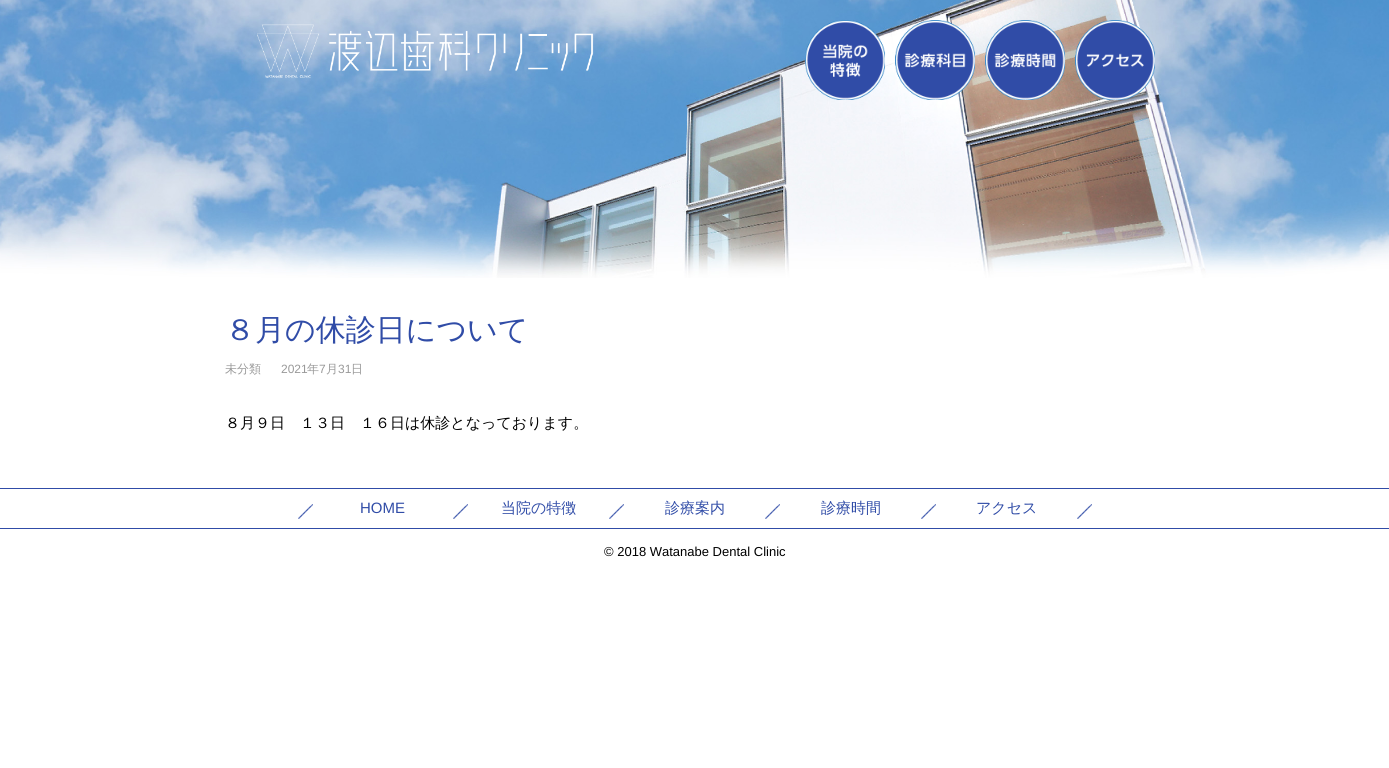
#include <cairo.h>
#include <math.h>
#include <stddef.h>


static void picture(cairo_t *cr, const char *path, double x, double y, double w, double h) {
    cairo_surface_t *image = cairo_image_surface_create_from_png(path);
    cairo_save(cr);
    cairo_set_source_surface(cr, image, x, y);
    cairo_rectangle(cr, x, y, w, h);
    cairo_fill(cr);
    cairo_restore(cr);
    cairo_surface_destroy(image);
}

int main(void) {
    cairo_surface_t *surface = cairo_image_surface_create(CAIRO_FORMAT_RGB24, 1389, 768);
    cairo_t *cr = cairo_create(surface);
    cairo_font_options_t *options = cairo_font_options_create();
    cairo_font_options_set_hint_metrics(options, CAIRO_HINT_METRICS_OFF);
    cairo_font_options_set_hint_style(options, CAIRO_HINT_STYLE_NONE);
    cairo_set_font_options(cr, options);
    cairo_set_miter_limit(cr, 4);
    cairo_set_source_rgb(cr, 1, 1, 1);
    cairo_paint(cr);
    picture(cr, "img1.png", 0, 0, 1389, 278);
    picture(cr, "img2.png", 257, 24, 337, 54);
    picture(cr, "img3.png", 805, 20, 80, 80);
    picture(cr, "img4.png", 805, 20, 80, 80);
    picture(cr, "img5.png", 895, 20, 80, 80);
    picture(cr, "img6.png", 895, 20, 80, 80);
    picture(cr, "img7.png", 985, 20, 80, 80);
    picture(cr, "img8.png", 985, 20, 80, 80);
    picture(cr, "img9.png", 1075, 20, 80, 80);
    picture(cr, "img10.png", 1075, 20, 80, 80);
    cairo_select_font_face(cr, "WenQuanYi Zen Hei Medium", CAIRO_FONT_SLANT_NORMAL, CAIRO_FONT_WEIGHT_NORMAL);
    cairo_set_font_size(cr, 30);
    cairo_set_source_rgb(cr, 0.188, 0.298, 0.655);
    cairo_move_to(cr, 225, 340);
    cairo_show_text(cr, "８月の休診日について");
    cairo_set_font_size(cr, 12);
    cairo_set_source_rgb(cr, 0.6, 0.6, 0.6);
    cairo_move_to(cr, 225, 373);
    cairo_show_text(cr, "未分類");
    cairo_select_font_face(cr, "Liberation Sans", CAIRO_FONT_SLANT_NORMAL, CAIRO_FONT_WEIGHT_NORMAL);
    cairo_move_to(cr, 281, 373);
    cairo_show_text(cr, "2021");
    cairo_select_font_face(cr, "WenQuanYi Zen Hei Medium", CAIRO_FONT_SLANT_NORMAL, CAIRO_FONT_WEIGHT_NORMAL);
    cairo_move_to(cr, 307, 373);
    cairo_show_text(cr, "年");
    cairo_select_font_face(cr, "Liberation Sans", CAIRO_FONT_SLANT_NORMAL, CAIRO_FONT_WEIGHT_NORMAL);
    cairo_move_to(cr, 319, 373);
    cairo_show_text(cr, "7");
    cairo_select_font_face(cr, "WenQuanYi Zen Hei Medium", CAIRO_FONT_SLANT_NORMAL, CAIRO_FONT_WEIGHT_NORMAL);
    cairo_move_to(cr, 326, 373);
    cairo_show_text(cr, "月");
    cairo_select_font_face(cr, "Liberation Sans", CAIRO_FONT_SLANT_NORMAL, CAIRO_FONT_WEIGHT_NORMAL);
    cairo_move_to(cr, 338, 373);
    cairo_show_text(cr, "31");
    cairo_select_font_face(cr, "WenQuanYi Zen Hei Medium", CAIRO_FONT_SLANT_NORMAL, CAIRO_FONT_WEIGHT_NORMAL);
    cairo_move_to(cr, 351, 373);
    cairo_show_text(cr, "日");
    cairo_set_font_size(cr, 15);
    cairo_set_source_rgb(cr, 0, 0, 0);
    cairo_move_to(cr, 225, 428);
    cairo_show_text(cr, "８月９日　１３日　１６日は休診となっております。");
    cairo_set_source_rgb(cr, 0.188, 0.298, 0.655);
    cairo_rectangle(cr, 0, 488, 1389, 1);
    cairo_fill(cr);
    cairo_rectangle(cr, 0, 528, 1389, 1);
    cairo_fill(cr);
    picture(cr, "img11.png", 298, 504, 15, 15);
    cairo_select_font_face(cr, "Liberation Sans", CAIRO_FONT_SLANT_NORMAL, CAIRO_FONT_WEIGHT_NORMAL);
    cairo_move_to(cr, 360, 513);
    cairo_show_text(cr, "HOME");
    picture(cr, "img12.png", 453, 504, 15, 15);
    cairo_select_font_face(cr, "WenQuanYi Zen Hei Medium", CAIRO_FONT_SLANT_NORMAL, CAIRO_FONT_WEIGHT_NORMAL);
    cairo_move_to(cr, 501, 513);
    cairo_show_text(cr, "当院の特徴");
    picture(cr, "img11.png", 609, 504, 15, 15);
    cairo_move_to(cr, 665, 513);
    cairo_show_text(cr, "診療案内");
    picture(cr, "img11.png", 765, 504, 15, 15);
    cairo_move_to(cr, 821, 513);
    cairo_show_text(cr, "診療時間");
    picture(cr, "img11.png", 921, 504, 15, 15);
    cairo_move_to(cr, 976, 513);
    cairo_show_text(cr, "アクセス");
    picture(cr, "img12.png", 1077, 504, 15, 15);
    cairo_select_font_face(cr, "Liberation Sans", CAIRO_FONT_SLANT_NORMAL, CAIRO_FONT_WEIGHT_NORMAL);
    cairo_set_font_size(cr, 13);
    cairo_set_source_rgb(cr, 0, 0, 0);
    cairo_move_to(cr, 604, 556);
    cairo_show_text(cr, "© 2018 Watanabe Dental Clinic");
    cairo_surface_write_to_png(surface, "page.png");
    cairo_font_options_destroy(options);
    cairo_destroy(cr);
    cairo_surface_destroy(surface);
    return 0;
}
